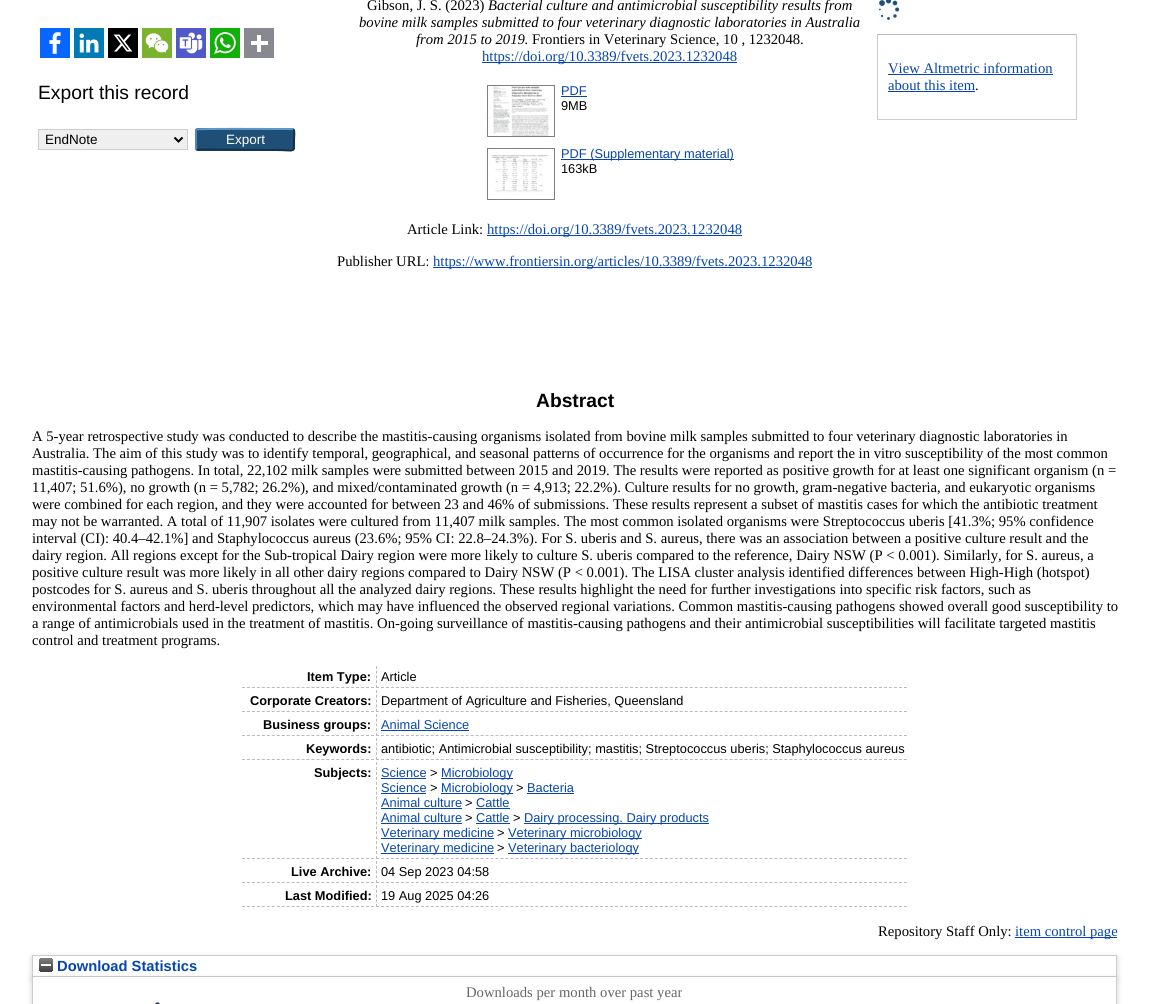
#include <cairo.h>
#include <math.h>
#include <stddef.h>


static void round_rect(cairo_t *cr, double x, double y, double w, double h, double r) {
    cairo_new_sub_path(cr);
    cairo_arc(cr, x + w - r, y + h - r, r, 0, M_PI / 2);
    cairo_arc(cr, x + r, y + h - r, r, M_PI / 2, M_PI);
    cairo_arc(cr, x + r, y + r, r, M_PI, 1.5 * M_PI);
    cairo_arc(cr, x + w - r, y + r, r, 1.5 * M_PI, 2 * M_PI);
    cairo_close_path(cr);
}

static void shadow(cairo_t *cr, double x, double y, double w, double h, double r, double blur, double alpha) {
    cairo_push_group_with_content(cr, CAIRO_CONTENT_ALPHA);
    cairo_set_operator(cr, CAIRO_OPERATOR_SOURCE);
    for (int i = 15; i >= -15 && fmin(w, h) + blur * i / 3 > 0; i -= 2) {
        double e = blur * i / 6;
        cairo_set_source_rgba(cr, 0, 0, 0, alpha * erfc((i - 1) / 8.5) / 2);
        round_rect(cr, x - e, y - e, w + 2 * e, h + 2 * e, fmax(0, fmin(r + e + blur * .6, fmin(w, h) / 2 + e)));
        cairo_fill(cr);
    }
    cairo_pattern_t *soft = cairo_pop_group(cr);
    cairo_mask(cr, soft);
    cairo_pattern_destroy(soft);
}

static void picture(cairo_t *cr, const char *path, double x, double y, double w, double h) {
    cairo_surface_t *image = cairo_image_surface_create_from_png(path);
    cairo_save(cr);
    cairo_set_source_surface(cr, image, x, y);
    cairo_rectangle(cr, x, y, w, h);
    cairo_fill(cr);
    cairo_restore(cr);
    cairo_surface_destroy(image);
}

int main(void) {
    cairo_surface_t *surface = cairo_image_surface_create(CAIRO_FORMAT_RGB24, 1149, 1004);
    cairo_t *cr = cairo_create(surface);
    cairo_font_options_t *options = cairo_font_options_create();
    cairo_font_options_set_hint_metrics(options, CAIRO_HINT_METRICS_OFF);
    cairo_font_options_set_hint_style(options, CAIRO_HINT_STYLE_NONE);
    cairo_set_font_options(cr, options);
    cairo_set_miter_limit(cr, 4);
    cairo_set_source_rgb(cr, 1, 1, 1);
    cairo_paint(cr);
    cairo_select_font_face(cr, "Liberation Serif", CAIRO_FONT_SLANT_NORMAL, CAIRO_FONT_WEIGHT_NORMAL);
    cairo_set_font_size(cr, 14.67);
    cairo_set_source_rgb(cr, 0, 0, 0);
    cairo_move_to(cr, 367, 10);
    cairo_show_text(cr, "Gibson, J. S. (2023)");
    cairo_select_font_face(cr, "Liberation Serif", CAIRO_FONT_SLANT_ITALIC, CAIRO_FONT_WEIGHT_NORMAL);
    cairo_move_to(cr, 488, 10);
    cairo_show_text(cr, "Bacterial culture and antimicrobial susceptibility results from");
    cairo_move_to(cr, 359, 27);
    cairo_show_text(cr, "bovine milk samples submitted to four veterinary diagnostic laboratories in Australia");
    cairo_move_to(cr, 416, 44);
    cairo_show_text(cr, "from 2015 to 2019.");
    cairo_select_font_face(cr, "Liberation Serif", CAIRO_FONT_SLANT_NORMAL, CAIRO_FONT_WEIGHT_NORMAL);
    cairo_move_to(cr, 532, 44);
    cairo_show_text(cr, "Frontiers in Veterinary Science, 10 , 1232048.");
    cairo_set_source_rgb(cr, 0.024, 0.271, 0.678);
    cairo_rectangle(cr, 482, 62, 255, 1);
    cairo_fill(cr);
    cairo_move_to(cr, 482, 61);
    cairo_show_text(cr, "https://doi.org/10.3389/fvets.2023.1232048");
    picture(cr, "img1.png", 487, 85, 68, 52);
    cairo_select_font_face(cr, "Liberation Sans", CAIRO_FONT_SLANT_NORMAL, CAIRO_FONT_WEIGHT_NORMAL);
    cairo_set_font_size(cr, 12.8);
    cairo_move_to(cr, 561, 95);
    cairo_show_text(cr, "PDF");
    cairo_rectangle(cr, 561, 96, 26, 1);
    cairo_fill(cr);
    cairo_set_source_rgb(cr, 0, 0, 0);
    cairo_move_to(cr, 561, 110);
    cairo_show_text(cr, "9MB");
    picture(cr, "img2.png", 487, 148, 68, 52);
    cairo_set_source_rgb(cr, 0.024, 0.271, 0.678);
    cairo_rectangle(cr, 561, 159, 173, 1);
    cairo_fill(cr);
    cairo_move_to(cr, 561, 158);
    cairo_show_text(cr, "PDF (Supplementary material)");
    cairo_set_source_rgb(cr, 0, 0, 0);
    cairo_move_to(cr, 561, 173);
    cairo_show_text(cr, "163kB");
    cairo_select_font_face(cr, "Liberation Serif", CAIRO_FONT_SLANT_NORMAL, CAIRO_FONT_WEIGHT_NORMAL);
    cairo_set_font_size(cr, 14.67);
    cairo_move_to(cr, 407, 234);
    cairo_show_text(cr, "Article Link:");
    cairo_set_source_rgb(cr, 0.024, 0.271, 0.678);
    cairo_rectangle(cr, 487, 235, 255, 1);
    cairo_fill(cr);
    cairo_move_to(cr, 487, 234);
    cairo_show_text(cr, "https://doi.org/10.3389/fvets.2023.1232048");
    cairo_set_source_rgb(cr, 0, 0, 0);
    cairo_move_to(cr, 337, 266);
    cairo_show_text(cr, "Publisher URL:");
    cairo_set_source_rgb(cr, 0.024, 0.271, 0.678);
    cairo_rectangle(cr, 433, 267, 379, 1);
    cairo_fill(cr);
    cairo_move_to(cr, 433, 266);
    cairo_show_text(cr, "https://www.frontiersin.org/articles/10.3389/fvets.2023.1232048");
    cairo_select_font_face(cr, "Liberation Sans", CAIRO_FONT_SLANT_NORMAL, CAIRO_FONT_WEIGHT_BOLD);
    cairo_set_font_size(cr, 19.25);
    cairo_set_source_rgb(cr, 0, 0, 0);
    cairo_move_to(cr, 536, 407);
    cairo_show_text(cr, "Abstract");
    cairo_select_font_face(cr, "Liberation Serif", CAIRO_FONT_SLANT_NORMAL, CAIRO_FONT_WEIGHT_NORMAL);
    cairo_set_font_size(cr, 14.67);
    cairo_move_to(cr, 32, 441);
    cairo_show_text(cr, "A 5-year retrospective study was conducted to describe the mastitis-causing organisms isolated from bovine milk samples submitted to four veterinary diagnostic laboratories in");
    cairo_move_to(cr, 32, 458);
    cairo_show_text(cr, "Australia. The aim of this study was to identify temporal, geographical, and seasonal patterns of occurrence for the organisms and report the in vitro susceptibility of the most common");
    cairo_move_to(cr, 32, 475);
    cairo_show_text(cr, "mastitis-causing pathogens. In total, 22,102 milk samples were submitted between 2015 and 2019. The results were reported as positive growth for at least one significant organism (n =");
    cairo_move_to(cr, 32, 492);
    cairo_show_text(cr, "11,407; 51.6%), no growth (n = 5,782; 26.2%), and mixed/contaminated growth (n = 4,913; 22.2%). Culture results for no growth, gram-negative bacteria, and eukaryotic organisms");
    cairo_move_to(cr, 32, 509);
    cairo_show_text(cr, "were combined for each region, and they were accounted for between 23 and 46% of submissions. These results represent a subset of mastitis cases for which the antibiotic treatment");
    cairo_move_to(cr, 32, 526);
    cairo_show_text(cr, "may not be warranted. A total of 11,907 isolates were cultured from 11,407 milk samples. The most common isolated organisms were Streptococcus uberis [41.3%; 95% confidence");
    cairo_move_to(cr, 32, 543);
    cairo_show_text(cr, "interval (CI): 40.4–42.1%] and Staphylococcus aureus (23.6%; 95% CI: 22.8–24.3%). For S. uberis and S. aureus, there was an association between a positive culture result and the");
    cairo_move_to(cr, 32, 560);
    cairo_show_text(cr, "dairy region. All regions except for the Sub-tropical Dairy region were more likely to culture S. uberis compared to the reference, Dairy NSW (P < 0.001). Similarly, for S. aureus, a");
    cairo_move_to(cr, 32, 577);
    cairo_show_text(cr, "positive culture result was more likely in all other dairy regions compared to Dairy NSW (P < 0.001). The LISA cluster analysis identified differences between High-High (hotspot)");
    cairo_move_to(cr, 32, 594);
    cairo_show_text(cr, "postcodes for S. aureus and S. uberis throughout all the analyzed dairy regions. These results highlight the need for further investigations into specific risk factors, such as");
    cairo_move_to(cr, 32, 611);
    cairo_show_text(cr, "environmental factors and herd-level predictors, which may have influenced the observed regional variations. Common mastitis-causing pathogens showed overall good susceptibility to");
    cairo_move_to(cr, 32, 628);
    cairo_show_text(cr, "a range of antimicrobials used in the treatment of mastitis. On-going surveillance of mastitis-causing pathogens and their antimicrobial susceptibilities will facilitate targeted mastitis");
    cairo_move_to(cr, 32, 645);
    cairo_show_text(cr, "control and treatment programs.");
    cairo_new_path(cr);
    cairo_move_to(cr, 242, 687.5);
    cairo_line_to(cr, 374, 687.5);
    cairo_set_source_rgb(cr, 0.733, 0.733, 0.733);
    cairo_set_line_width(cr, 1);
    cairo_set_dash(cr, (double[]){3, 1.96}, 2, 0);
    cairo_stroke(cr);
    cairo_select_font_face(cr, "Liberation Sans", CAIRO_FONT_SLANT_NORMAL, CAIRO_FONT_WEIGHT_BOLD);
    cairo_set_font_size(cr, 12.8);
    cairo_set_source_rgb(cr, 0, 0, 0);
    cairo_move_to(cr, 307, 681);
    cairo_show_text(cr, "Item Type:");
    cairo_new_path(cr);
    cairo_move_to(cr, 376, 687.5);
    cairo_line_to(cr, 907, 687.5);
    cairo_set_source_rgb(cr, 0.733, 0.733, 0.733);
    cairo_set_dash(cr, (double[]){3, 1.98}, 2, 0);
    cairo_stroke(cr);
    cairo_new_path(cr);
    cairo_move_to(cr, 376.5, 666);
    cairo_line_to(cr, 376.5, 688);
    cairo_set_dash(cr, (double[]){3, 1.75}, 2, 0);
    cairo_stroke(cr);
    cairo_select_font_face(cr, "Liberation Sans", CAIRO_FONT_SLANT_NORMAL, CAIRO_FONT_WEIGHT_NORMAL);
    cairo_set_source_rgb(cr, 0, 0, 0);
    cairo_move_to(cr, 381, 681);
    cairo_show_text(cr, "Article");
    cairo_new_path(cr);
    cairo_move_to(cr, 242, 711.5);
    cairo_line_to(cr, 374, 711.5);
    cairo_set_source_rgb(cr, 0.733, 0.733, 0.733);
    cairo_set_dash(cr, (double[]){3, 1.96}, 2, 0);
    cairo_stroke(cr);
    cairo_select_font_face(cr, "Liberation Sans", CAIRO_FONT_SLANT_NORMAL, CAIRO_FONT_WEIGHT_BOLD);
    cairo_set_source_rgb(cr, 0, 0, 0);
    cairo_move_to(cr, 250, 705);
    cairo_show_text(cr, "Corporate Creators:");
    cairo_new_path(cr);
    cairo_move_to(cr, 376, 711.5);
    cairo_line_to(cr, 907, 711.5);
    cairo_set_source_rgb(cr, 0.733, 0.733, 0.733);
    cairo_set_dash(cr, (double[]){3, 1.98}, 2, 0);
    cairo_stroke(cr);
    cairo_new_path(cr);
    cairo_move_to(cr, 376.5, 690);
    cairo_line_to(cr, 376.5, 712);
    cairo_set_dash(cr, (double[]){3, 1.75}, 2, 0);
    cairo_stroke(cr);
    cairo_select_font_face(cr, "Liberation Sans", CAIRO_FONT_SLANT_NORMAL, CAIRO_FONT_WEIGHT_NORMAL);
    cairo_set_source_rgb(cr, 0, 0, 0);
    cairo_move_to(cr, 381, 705);
    cairo_show_text(cr, "Department of Agriculture and Fisheries, Queensland");
    cairo_new_path(cr);
    cairo_move_to(cr, 242, 735.5);
    cairo_line_to(cr, 374, 735.5);
    cairo_set_source_rgb(cr, 0.733, 0.733, 0.733);
    cairo_set_dash(cr, (double[]){3, 1.96}, 2, 0);
    cairo_stroke(cr);
    cairo_select_font_face(cr, "Liberation Sans", CAIRO_FONT_SLANT_NORMAL, CAIRO_FONT_WEIGHT_BOLD);
    cairo_set_source_rgb(cr, 0, 0, 0);
    cairo_move_to(cr, 263, 729);
    cairo_show_text(cr, "Business groups:");
    cairo_new_path(cr);
    cairo_move_to(cr, 376, 735.5);
    cairo_line_to(cr, 907, 735.5);
    cairo_set_source_rgb(cr, 0.733, 0.733, 0.733);
    cairo_set_dash(cr, (double[]){3, 1.98}, 2, 0);
    cairo_stroke(cr);
    cairo_new_path(cr);
    cairo_move_to(cr, 376.5, 714);
    cairo_line_to(cr, 376.5, 736);
    cairo_set_dash(cr, (double[]){3, 1.75}, 2, 0);
    cairo_stroke(cr);
    cairo_select_font_face(cr, "Liberation Sans", CAIRO_FONT_SLANT_NORMAL, CAIRO_FONT_WEIGHT_NORMAL);
    cairo_set_source_rgb(cr, 0.024, 0.271, 0.678);
    cairo_move_to(cr, 381, 729);
    cairo_show_text(cr, "Animal Science");
    cairo_rectangle(cr, 381, 730, 88, 1);
    cairo_fill(cr);
    cairo_new_path(cr);
    cairo_move_to(cr, 242, 759.5);
    cairo_line_to(cr, 374, 759.5);
    cairo_set_source_rgb(cr, 0.733, 0.733, 0.733);
    cairo_set_dash(cr, (double[]){3, 1.96}, 2, 0);
    cairo_stroke(cr);
    cairo_select_font_face(cr, "Liberation Sans", CAIRO_FONT_SLANT_NORMAL, CAIRO_FONT_WEIGHT_BOLD);
    cairo_set_source_rgb(cr, 0, 0, 0);
    cairo_move_to(cr, 306, 753);
    cairo_show_text(cr, "Keywords:");
    cairo_new_path(cr);
    cairo_move_to(cr, 376, 759.5);
    cairo_line_to(cr, 907, 759.5);
    cairo_set_source_rgb(cr, 0.733, 0.733, 0.733);
    cairo_set_dash(cr, (double[]){3, 1.98}, 2, 0);
    cairo_stroke(cr);
    cairo_new_path(cr);
    cairo_move_to(cr, 376.5, 738);
    cairo_line_to(cr, 376.5, 760);
    cairo_set_dash(cr, (double[]){3, 1.75}, 2, 0);
    cairo_stroke(cr);
    cairo_select_font_face(cr, "Liberation Sans", CAIRO_FONT_SLANT_NORMAL, CAIRO_FONT_WEIGHT_NORMAL);
    cairo_set_source_rgb(cr, 0, 0, 0);
    cairo_move_to(cr, 381, 753);
    cairo_show_text(cr, "antibiotic; Antimicrobial susceptibility; mastitis; Streptococcus uberis; Staphylococcus aureus");
    cairo_new_path(cr);
    cairo_move_to(cr, 242, 858.5);
    cairo_line_to(cr, 374, 858.5);
    cairo_set_source_rgb(cr, 0.733, 0.733, 0.733);
    cairo_set_dash(cr, (double[]){3, 1.96}, 2, 0);
    cairo_stroke(cr);
    cairo_select_font_face(cr, "Liberation Sans", CAIRO_FONT_SLANT_NORMAL, CAIRO_FONT_WEIGHT_BOLD);
    cairo_set_source_rgb(cr, 0, 0, 0);
    cairo_move_to(cr, 314, 777);
    cairo_show_text(cr, "Subjects:");
    cairo_new_path(cr);
    cairo_move_to(cr, 376, 858.5);
    cairo_line_to(cr, 907, 858.5);
    cairo_set_source_rgb(cr, 0.733, 0.733, 0.733);
    cairo_set_dash(cr, (double[]){3, 1.98}, 2, 0);
    cairo_stroke(cr);
    cairo_new_path(cr);
    cairo_move_to(cr, 376.5, 762);
    cairo_line_to(cr, 376.5, 859);
    cairo_set_dash(cr, (double[]){3, 1.95}, 2, 0);
    cairo_stroke(cr);
    cairo_select_font_face(cr, "Liberation Sans", CAIRO_FONT_SLANT_NORMAL, CAIRO_FONT_WEIGHT_NORMAL);
    cairo_set_source_rgb(cr, 0.024, 0.271, 0.678);
    cairo_move_to(cr, 381, 777);
    cairo_show_text(cr, "Science");
    cairo_rectangle(cr, 381, 778, 45, 1);
    cairo_fill(cr);
    cairo_set_source_rgb(cr, 0, 0, 0);
    cairo_move_to(cr, 430, 777);
    cairo_show_text(cr, ">");
    cairo_set_source_rgb(cr, 0.024, 0.271, 0.678);
    cairo_rectangle(cr, 441, 778, 72, 1);
    cairo_fill(cr);
    cairo_move_to(cr, 441, 777);
    cairo_show_text(cr, "Microbiology");
    cairo_move_to(cr, 381, 792);
    cairo_show_text(cr, "Science");
    cairo_rectangle(cr, 381, 793, 45, 1);
    cairo_fill(cr);
    cairo_set_source_rgb(cr, 0, 0, 0);
    cairo_move_to(cr, 430, 792);
    cairo_show_text(cr, ">");
    cairo_set_source_rgb(cr, 0.024, 0.271, 0.678);
    cairo_rectangle(cr, 441, 793, 72, 1);
    cairo_fill(cr);
    cairo_move_to(cr, 441, 792);
    cairo_show_text(cr, "Microbiology");
    cairo_set_source_rgb(cr, 0, 0, 0);
    cairo_move_to(cr, 516, 792);
    cairo_show_text(cr, ">");
    cairo_set_source_rgb(cr, 0.024, 0.271, 0.678);
    cairo_move_to(cr, 527, 792);
    cairo_show_text(cr, "Bacteria");
    cairo_rectangle(cr, 527, 793, 47, 1);
    cairo_fill(cr);
    cairo_move_to(cr, 381, 807);
    cairo_show_text(cr, "Animal culture");
    cairo_rectangle(cr, 381, 808, 81, 1);
    cairo_fill(cr);
    cairo_set_source_rgb(cr, 0, 0, 0);
    cairo_move_to(cr, 465, 807);
    cairo_show_text(cr, ">");
    cairo_set_source_rgb(cr, 0.024, 0.271, 0.678);
    cairo_move_to(cr, 476, 807);
    cairo_show_text(cr, "Cattle");
    cairo_rectangle(cr, 476, 808, 34, 1);
    cairo_fill(cr);
    cairo_move_to(cr, 381, 822);
    cairo_show_text(cr, "Animal culture");
    cairo_rectangle(cr, 381, 823, 81, 1);
    cairo_fill(cr);
    cairo_set_source_rgb(cr, 0, 0, 0);
    cairo_move_to(cr, 465, 822);
    cairo_show_text(cr, ">");
    cairo_set_source_rgb(cr, 0.024, 0.271, 0.678);
    cairo_move_to(cr, 476, 822);
    cairo_show_text(cr, "Cattle");
    cairo_rectangle(cr, 476, 823, 34, 1);
    cairo_fill(cr);
    cairo_set_source_rgb(cr, 0, 0, 0);
    cairo_move_to(cr, 513, 822);
    cairo_show_text(cr, ">");
    cairo_set_source_rgb(cr, 0.024, 0.271, 0.678);
    cairo_rectangle(cr, 524, 823, 185, 1);
    cairo_fill(cr);
    cairo_move_to(cr, 524, 822);
    cairo_show_text(cr, "Dairy processing. Dairy products");
    cairo_rectangle(cr, 381, 838, 113, 1);
    cairo_fill(cr);
    cairo_move_to(cr, 381, 837);
    cairo_show_text(cr, "Veterinary medicine");
    cairo_set_source_rgb(cr, 0, 0, 0);
    cairo_move_to(cr, 497, 837);
    cairo_show_text(cr, ">");
    cairo_set_source_rgb(cr, 0.024, 0.271, 0.678);
    cairo_rectangle(cr, 508, 838, 134, 1);
    cairo_fill(cr);
    cairo_move_to(cr, 508, 837);
    cairo_show_text(cr, "Veterinary microbiology");
    cairo_rectangle(cr, 381, 853, 113, 1);
    cairo_fill(cr);
    cairo_move_to(cr, 381, 852);
    cairo_show_text(cr, "Veterinary medicine");
    cairo_set_source_rgb(cr, 0, 0, 0);
    cairo_move_to(cr, 497, 852);
    cairo_show_text(cr, ">");
    cairo_set_source_rgb(cr, 0.024, 0.271, 0.678);
    cairo_rectangle(cr, 508, 853, 131, 1);
    cairo_fill(cr);
    cairo_move_to(cr, 508, 852);
    cairo_show_text(cr, "Veterinary bacteriology");
    cairo_new_path(cr);
    cairo_move_to(cr, 242, 882.5);
    cairo_line_to(cr, 374, 882.5);
    cairo_set_source_rgb(cr, 0.733, 0.733, 0.733);
    cairo_set_dash(cr, (double[]){3, 1.96}, 2, 0);
    cairo_stroke(cr);
    cairo_select_font_face(cr, "Liberation Sans", CAIRO_FONT_SLANT_NORMAL, CAIRO_FONT_WEIGHT_BOLD);
    cairo_set_source_rgb(cr, 0, 0, 0);
    cairo_move_to(cr, 291, 876);
    cairo_show_text(cr, "Live Archive:");
    cairo_new_path(cr);
    cairo_move_to(cr, 376, 882.5);
    cairo_line_to(cr, 907, 882.5);
    cairo_set_source_rgb(cr, 0.733, 0.733, 0.733);
    cairo_set_dash(cr, (double[]){3, 1.98}, 2, 0);
    cairo_stroke(cr);
    cairo_new_path(cr);
    cairo_move_to(cr, 376.5, 861);
    cairo_line_to(cr, 376.5, 883);
    cairo_set_dash(cr, (double[]){3, 1.75}, 2, 0);
    cairo_stroke(cr);
    cairo_select_font_face(cr, "Liberation Sans", CAIRO_FONT_SLANT_NORMAL, CAIRO_FONT_WEIGHT_NORMAL);
    cairo_set_source_rgb(cr, 0, 0, 0);
    cairo_move_to(cr, 381, 876);
    cairo_show_text(cr, "04 Sep 2023 04:58");
    cairo_new_path(cr);
    cairo_move_to(cr, 242, 906.5);
    cairo_line_to(cr, 374, 906.5);
    cairo_set_source_rgb(cr, 0.733, 0.733, 0.733);
    cairo_set_dash(cr, (double[]){3, 1.96}, 2, 0);
    cairo_stroke(cr);
    cairo_select_font_face(cr, "Liberation Sans", CAIRO_FONT_SLANT_NORMAL, CAIRO_FONT_WEIGHT_BOLD);
    cairo_set_source_rgb(cr, 0, 0, 0);
    cairo_move_to(cr, 285, 900);
    cairo_show_text(cr, "Last Modified:");
    cairo_new_path(cr);
    cairo_move_to(cr, 376, 906.5);
    cairo_line_to(cr, 907, 906.5);
    cairo_set_source_rgb(cr, 0.733, 0.733, 0.733);
    cairo_set_dash(cr, (double[]){3, 1.98}, 2, 0);
    cairo_stroke(cr);
    cairo_new_path(cr);
    cairo_move_to(cr, 376.5, 885);
    cairo_line_to(cr, 376.5, 907);
    cairo_set_dash(cr, (double[]){3, 1.75}, 2, 0);
    cairo_stroke(cr);
    cairo_select_font_face(cr, "Liberation Sans", CAIRO_FONT_SLANT_NORMAL, CAIRO_FONT_WEIGHT_NORMAL);
    cairo_set_source_rgb(cr, 0, 0, 0);
    cairo_move_to(cr, 381, 900);
    cairo_show_text(cr, "19 Aug 2025 04:26");
    cairo_select_font_face(cr, "Liberation Serif", CAIRO_FONT_SLANT_NORMAL, CAIRO_FONT_WEIGHT_NORMAL);
    cairo_set_font_size(cr, 14.67);
    cairo_move_to(cr, 878, 936);
    cairo_show_text(cr, "Repository Staff Only:");
    cairo_set_source_rgb(cr, 0.024, 0.271, 0.678);
    cairo_rectangle(cr, 1015, 937, 102, 1);
    cairo_fill(cr);
    cairo_move_to(cr, 1015, 936);
    cairo_show_text(cr, "item control page");
    picture(cr, "img3.png", 878, 0, 22, 20);
    cairo_set_source_rgb(cr, 0.733, 0.733, 0.733);
    cairo_rectangle(cr, 877, 34, 200, 1);
    cairo_fill(cr);
    cairo_set_source_rgb(cr, 0.8, 0.8, 0.8);
    cairo_rectangle(cr, 1076, 34, 1, 86);
    cairo_fill(cr);
    cairo_rectangle(cr, 877, 119, 200, 1);
    cairo_fill(cr);
    cairo_rectangle(cr, 877, 34, 1, 86);
    cairo_fill(cr);
    cairo_set_source_rgb(cr, 0.024, 0.271, 0.678);
    cairo_move_to(cr, 888, 73);
    cairo_show_text(cr, "View Altmetric information");
    cairo_rectangle(cr, 888, 74, 165, 1);
    cairo_fill(cr);
    cairo_move_to(cr, 888, 90);
    cairo_show_text(cr, "about this item");
    cairo_rectangle(cr, 888, 91, 87, 1);
    cairo_fill(cr);
    cairo_set_source_rgb(cr, 0, 0, 0);
    cairo_move_to(cr, 975, 90);
    cairo_show_text(cr, ".");
    cairo_set_source_rgb(cr, 0.031, 0.4, 1);
    cairo_rectangle(cr, 40, 28, 30, 30);
    cairo_fill(cr);
    cairo_set_source_rgb(cr, 0, 0.482, 0.71);
    cairo_rectangle(cr, 74, 28, 30, 30);
    cairo_fill(cr);
    cairo_set_source_rgb(cr, 0, 0, 0);
    cairo_rectangle(cr, 108, 28, 30, 30);
    cairo_fill(cr);
    cairo_set_source_rgb(cr, 0.482, 0.702, 0.18);
    cairo_rectangle(cr, 142, 28, 30, 30);
    cairo_fill(cr);
    cairo_set_source_rgb(cr, 0.314, 0.349, 0.788);
    cairo_rectangle(cr, 176, 28, 30, 30);
    cairo_fill(cr);
    cairo_set_source_rgb(cr, 0.071, 0.686, 0.039);
    cairo_rectangle(cr, 210, 28, 30, 30);
    cairo_fill(cr);
    cairo_set_source_rgb(cr, 0.533, 0.537, 0.565);
    cairo_rectangle(cr, 244, 28, 30, 30);
    cairo_fill(cr);
    picture(cr, "img4.png", 49, 32, 12, 22);
    picture(cr, "img5.png", 79, 33, 20, 20);
    picture(cr, "img6.png", 113, 34, 20, 18);
    picture(cr, "img7.png", 145, 33, 24, 20);
    picture(cr, "img8.png", 179, 32, 24, 22);
    picture(cr, "img9.png", 214, 32, 22, 22);
    cairo_set_source_rgb(cr, 1, 1, 1);
    cairo_rectangle(cr, 257, 35, 4, 17);
    cairo_fill(cr);
    cairo_rectangle(cr, 251, 41, 17, 4);
    cairo_fill(cr);
    cairo_select_font_face(cr, "Liberation Sans", CAIRO_FONT_SLANT_NORMAL, CAIRO_FONT_WEIGHT_NORMAL);
    cairo_set_font_size(cr, 19.25);
    cairo_set_source_rgb(cr, 0, 0, 0);
    cairo_move_to(cr, 38, 99);
    cairo_show_text(cr, "Export this record");
    cairo_set_source_rgb(cr, 0.937, 0.937, 0.937);
    cairo_rectangle(cr, 38.5, 129.5, 149, 20);
    cairo_fill_preserve(cr);
    cairo_set_source_rgb(cr, 0.8, 0.8, 0.8);
    cairo_set_dash(cr, NULL, 0, 0);
    cairo_stroke(cr);
    cairo_new_path(cr);
    cairo_move_to(cr, 174.5, 137.5);
    cairo_line_to(cr, 178.5, 141.5);
    cairo_line_to(cr, 182.5, 137.5);
    cairo_set_source_rgb(cr, 0, 0, 0);
    cairo_set_line_width(cr, 2);
    cairo_stroke(cr);
    cairo_set_font_size(cr, 13.5);
    cairo_move_to(cr, 45, 144);
    cairo_show_text(cr, "EndNote");
    cairo_set_source_rgb(cr, 0.122, 0.31, 0.463);
    round_rect(cr, 195, 128, 100, 23, 3);
    cairo_fill(cr);
    cairo_new_path(cr);
    cairo_move_to(cr, 196.5, 129.5);
    cairo_curve_to(cr, 198, 128.5, 268, 129, 276.5, 129);
    cairo_line_to(cr, 292, 129);
    cairo_line_to(cr, 293.5, 129.5);
    cairo_set_source_rgb(cr, 0.357, 0.592, 0.78);
    cairo_stroke(cr);
    cairo_new_path(cr);
    cairo_move_to(cr, 293.5, 129.5);
    cairo_curve_to(cr, 295, 131, 294, 137.5, 294, 139.5);
    cairo_curve_to(cr, 294, 154, 295.5, 150, 276.5, 150);
    cairo_line_to(cr, 196.5, 149.5);
    cairo_set_source_rgb(cr, 0.075, 0.196, 0.29);
    cairo_stroke(cr);
    cairo_new_path(cr);
    cairo_move_to(cr, 196.5, 149.5);
    cairo_curve_to(cr, 196, 149, 196, 148.5, 196, 148);
    cairo_line_to(cr, 196, 131);
    cairo_curve_to(cr, 196, 130.5, 196, 130, 196.5, 129.5);
    cairo_set_source_rgb(cr, 0.322, 0.529, 0.702);
    cairo_stroke(cr);
    cairo_set_source_rgb(cr, 1, 1, 1);
    cairo_move_to(cr, 226, 144);
    cairo_show_text(cr, "Export");
    cairo_save(cr);
    cairo_set_fill_rule(cr, CAIRO_FILL_RULE_EVEN_ODD);
    cairo_new_path(cr);
    cairo_move_to(cr, 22, 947);
    cairo_line_to(cr, 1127, 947);
    cairo_line_to(cr, 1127, 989);
    cairo_line_to(cr, 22, 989);
    cairo_close_path(cr);
    cairo_move_to(cr, 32, 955);
    cairo_line_to(cr, 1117, 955);
    cairo_line_to(cr, 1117, 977);
    cairo_line_to(cr, 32, 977);
    cairo_close_path(cr);
    cairo_clip(cr);
    cairo_set_source_rgb(cr, 0.392, 0.392, 0.392);
    shadow(cr, 32, 957, 1085, 22, 0, 3, 0.3);
    cairo_restore(cr);
    cairo_rectangle(cr, 32.5, 955.5, 1084, 21);
    cairo_set_source_rgb(cr, 0.8, 0.8, 0.8);
    cairo_set_line_width(cr, 1);
    cairo_stroke(cr);
    cairo_set_source_rgb(cr, 0.392, 0.392, 0.392);
    shadow(cr, 32, 979, 1085, 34, 0, 3, 0.3);
    picture(cr, "img10.png", 39, 958, 14, 14);
    cairo_select_font_face(cr, "Liberation Sans", CAIRO_FONT_SLANT_NORMAL, CAIRO_FONT_WEIGHT_BOLD);
    cairo_set_font_size(cr, 14.75);
    cairo_set_source_rgb(cr, 0.024, 0.271, 0.678);
    cairo_move_to(cr, 57, 971);
    cairo_show_text(cr, "Download Statistics");
    cairo_set_source_rgb(cr, 1, 1, 1);
    cairo_rectangle(cr, 33, 977, 1083, 27);
    cairo_fill(cr);
    cairo_set_source_rgb(cr, 0.8, 0.8, 0.8);
    cairo_rectangle(cr, 1116, 977, 1, 27);
    cairo_fill(cr);
    cairo_rectangle(cr, 32, 977, 1, 27);
    cairo_fill(cr);
    cairo_select_font_face(cr, "Liberation Serif", CAIRO_FONT_SLANT_NORMAL, CAIRO_FONT_WEIGHT_NORMAL);
    cairo_set_font_size(cr, 14.67);
    cairo_set_source_rgb(cr, 0.4, 0.4, 0.4);
    cairo_move_to(cr, 466, 997);
    cairo_show_text(cr, "Downloads per month over past year");
    picture(cr, "img11.png", 155, 1002, 5, 2);
    cairo_surface_write_to_png(surface, "page.png");
    cairo_font_options_destroy(options);
    cairo_destroy(cr);
    cairo_surface_destroy(surface);
    return 0;
}
